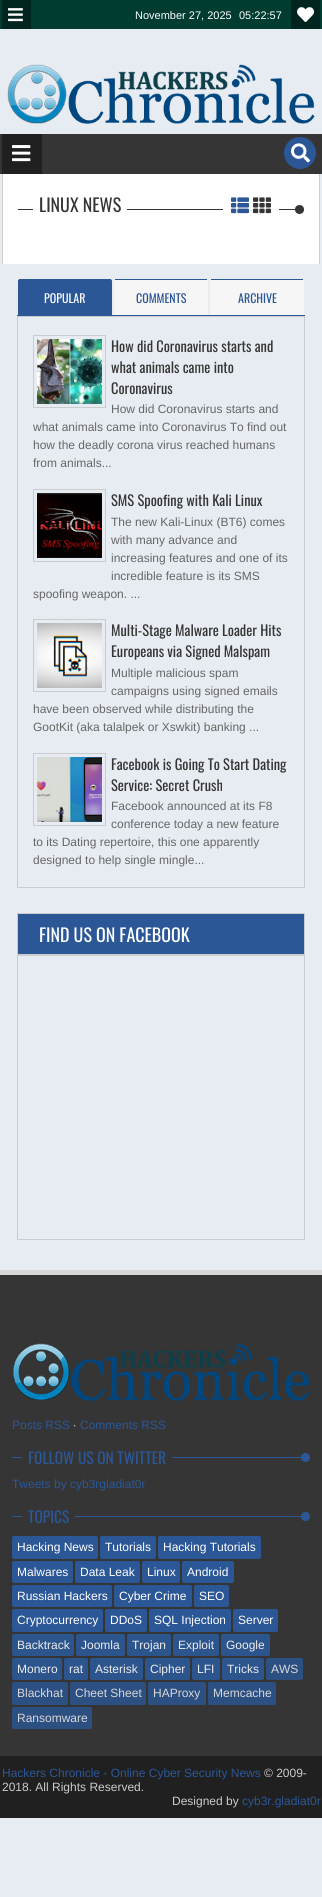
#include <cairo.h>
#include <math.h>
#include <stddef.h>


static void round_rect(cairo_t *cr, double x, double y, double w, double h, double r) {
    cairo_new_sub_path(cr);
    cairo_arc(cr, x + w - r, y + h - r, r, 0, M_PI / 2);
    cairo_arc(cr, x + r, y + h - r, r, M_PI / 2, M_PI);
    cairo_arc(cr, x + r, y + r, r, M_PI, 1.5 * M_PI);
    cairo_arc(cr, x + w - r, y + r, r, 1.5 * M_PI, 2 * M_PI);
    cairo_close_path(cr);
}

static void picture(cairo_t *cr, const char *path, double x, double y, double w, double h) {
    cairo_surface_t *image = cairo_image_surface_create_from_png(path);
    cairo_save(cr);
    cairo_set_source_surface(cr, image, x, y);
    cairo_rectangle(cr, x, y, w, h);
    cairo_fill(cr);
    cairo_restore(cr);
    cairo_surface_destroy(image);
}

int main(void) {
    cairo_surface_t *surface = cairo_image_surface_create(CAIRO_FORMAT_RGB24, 322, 1897);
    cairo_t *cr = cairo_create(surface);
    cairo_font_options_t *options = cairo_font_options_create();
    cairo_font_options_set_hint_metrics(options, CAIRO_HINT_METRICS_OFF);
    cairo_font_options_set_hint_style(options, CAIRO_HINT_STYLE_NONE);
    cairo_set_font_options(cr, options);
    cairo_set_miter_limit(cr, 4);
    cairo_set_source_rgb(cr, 0.906, 0.922, 0.949);
    cairo_paint(cr);
    cairo_set_source_rgb(cr, 0, 0.235, 0.188);
    cairo_rectangle(cr, 0, 0, 322, 29);
    cairo_fill(cr);
    cairo_set_source_rgb(cr, 0, 0.145, 0.118);
    cairo_rectangle(cr, 2, 0, 29, 29);
    cairo_fill(cr);
    picture(cr, "img1.png", 8, 8, 15, 14);
    cairo_select_font_face(cr, "Liberation Sans", CAIRO_FONT_SLANT_NORMAL, CAIRO_FONT_WEIGHT_NORMAL);
    cairo_set_font_size(cr, 11);
    cairo_set_source_rgb(cr, 1, 1, 1);
    cairo_move_to(cr, 135, 19);
    cairo_show_text(cr, "November 27, 2025");
    cairo_move_to(cr, 239, 19);
    cairo_show_text(cr, "05:22:57");
    cairo_set_source_rgb(cr, 0, 0.145, 0.118);
    cairo_rectangle(cr, 291, 0, 29, 29);
    cairo_fill(cr);
    picture(cr, "img2.png", 297, 7, 17, 15);
    picture(cr, "img3.png", 7, 64, 308, 60);
    cairo_set_source_rgb(cr, 0.208, 0.208, 0.208);
    cairo_rectangle(cr, 0, 134, 322, 40);
    cairo_fill(cr);
    cairo_set_source_rgb(cr, 0.125, 0.125, 0.125);
    cairo_rectangle(cr, 2, 134, 40, 40);
    cairo_fill(cr);
    picture(cr, "img4.png", 12, 145, 19, 17);
    cairo_set_source_rgb(cr, 0.169, 0.341, 0.592);
    cairo_arc(cr, 300, 153, 16, 0, 2 * M_PI);
    cairo_fill(cr);
    picture(cr, "img5.png", 291, 143, 19, 20);
    cairo_set_source_rgb(cr, 1, 1, 1);
    cairo_rectangle(cr, 3, 174, 316, 90);
    cairo_fill(cr);
    cairo_set_source_rgb(cr, 0.8, 0.8, 0.8);
    cairo_rectangle(cr, 319, 174, 1, 90);
    cairo_fill(cr);
    cairo_rectangle(cr, 2, 174, 1, 90);
    cairo_fill(cr);
    cairo_set_source_rgb(cr, 0.208, 0.208, 0.208);
    cairo_rectangle(cr, 18, 209, 286, 1);
    cairo_fill(cr);
    cairo_set_source_rgb(cr, 1, 1, 1);
    cairo_rectangle(cr, 33, 209, 94, 1);
    cairo_fill(cr);
    cairo_select_font_face(cr, "Oswald", CAIRO_FONT_SLANT_NORMAL, CAIRO_FONT_WEIGHT_NORMAL);
    cairo_set_font_size(cr, 18);
    cairo_set_source_rgb(cr, 0.208, 0.208, 0.208);
    cairo_move_to(cr, 39, 212);
    cairo_show_text(cr, "LINUX NEWS");
    cairo_set_source_rgb(cr, 1, 1, 1);
    cairo_rectangle(cr, 223, 209, 56, 1);
    cairo_fill(cr);
    picture(cr, "img6.png", 231, 197, 18, 17);
    picture(cr, "img7.png", 253, 197, 18, 17);
    cairo_set_source_rgb(cr, 0.208, 0.208, 0.208);
    cairo_arc(cr, 299.5, 209.5, 4.5, 0, 2 * M_PI);
    cairo_fill(cr);
    cairo_set_source_rgb(cr, 0.169, 0.341, 0.592);
    cairo_rectangle(cr, 17, 315, 288, 1);
    cairo_fill(cr);
    cairo_new_path(cr);
    cairo_move_to(cr, 20, 279);
    cairo_line_to(cr, 110, 279);
    cairo_curve_to(cr, 111, 279, 112, 280, 112, 281);
    cairo_line_to(cr, 112, 315);
    cairo_line_to(cr, 18, 315);
    cairo_line_to(cr, 18, 281);
    cairo_curve_to(cr, 18, 280, 19, 279, 20, 279);
    cairo_close_path(cr);
    cairo_fill(cr);
    cairo_rectangle(cr, 19, 279, 92, 1);
    cairo_fill(cr);
    cairo_set_font_size(cr, 12);
    cairo_set_source_rgb(cr, 1, 1, 1);
    cairo_move_to(cr, 44, 303);
    cairo_show_text(cr, "POPULAR");
    cairo_set_source_rgb(cr, 0.961, 0.961, 0.961);
    cairo_new_path(cr);
    cairo_move_to(cr, 116, 279);
    cairo_line_to(cr, 206, 279);
    cairo_curve_to(cr, 207, 279, 208, 280, 208, 281);
    cairo_line_to(cr, 208, 315);
    cairo_line_to(cr, 114, 315);
    cairo_line_to(cr, 114, 281);
    cairo_curve_to(cr, 114, 280, 115, 279, 116, 279);
    cairo_close_path(cr);
    cairo_fill(cr);
    cairo_set_source_rgb(cr, 0.169, 0.341, 0.592);
    cairo_rectangle(cr, 115, 279, 92, 1);
    cairo_fill(cr);
    cairo_move_to(cr, 136, 303);
    cairo_show_text(cr, "COMMENTS");
    cairo_set_source_rgb(cr, 0.961, 0.961, 0.961);
    cairo_new_path(cr);
    cairo_move_to(cr, 212, 279);
    cairo_line_to(cr, 302, 279);
    cairo_curve_to(cr, 303, 279, 304, 280, 304, 281);
    cairo_line_to(cr, 304, 315);
    cairo_line_to(cr, 210, 315);
    cairo_line_to(cr, 210, 281);
    cairo_curve_to(cr, 210, 280, 211, 279, 212, 279);
    cairo_close_path(cr);
    cairo_fill(cr);
    cairo_set_source_rgb(cr, 0.169, 0.341, 0.592);
    cairo_rectangle(cr, 211, 279, 92, 1);
    cairo_fill(cr);
    cairo_move_to(cr, 238, 303);
    cairo_show_text(cr, "ARCHIVE");
    cairo_rectangle(cr, 17.5, 316.5, 287, 571);
    cairo_set_source_rgb(cr, 0.8, 0.8, 0.8);
    cairo_set_line_width(cr, 1);
    cairo_stroke(cr);
    cairo_rectangle(cr, 33.5, 335.5, 72, 72);
    cairo_stroke(cr);
    picture(cr, "img8.png", 37, 339, 65, 65);
    cairo_set_font_size(cr, 14.4);
    cairo_set_source_rgb(cr, 0.208, 0.208, 0.208);
    cairo_move_to(cr, 111, 352);
    cairo_show_text(cr, "How did Coronavirus starts and");
    cairo_move_to(cr, 111, 373);
    cairo_show_text(cr, "what animals came into");
    cairo_move_to(cr, 111, 394);
    cairo_show_text(cr, "Coronavirus");
    cairo_select_font_face(cr, "Liberation Sans", CAIRO_FONT_SLANT_NORMAL, CAIRO_FONT_WEIGHT_NORMAL);
    cairo_set_font_size(cr, 12);
    cairo_set_source_rgb(cr, 0.4, 0.4, 0.4);
    cairo_move_to(cr, 111, 413);
    cairo_show_text(cr, "How did Coronavirus starts and");
    cairo_move_to(cr, 33, 431);
    cairo_show_text(cr, "what animals came into Coronavirus To find out");
    cairo_move_to(cr, 33, 449);
    cairo_show_text(cr, "how the deadly corona virus reached humans");
    cairo_move_to(cr, 33, 467);
    cairo_show_text(cr, "from animals...");
    cairo_rectangle(cr, 33.5, 489.5, 72, 72);
    cairo_set_source_rgb(cr, 0.8, 0.8, 0.8);
    cairo_stroke(cr);
    picture(cr, "img9.png", 37, 493, 65, 65);
    cairo_select_font_face(cr, "Oswald", CAIRO_FONT_SLANT_NORMAL, CAIRO_FONT_WEIGHT_NORMAL);
    cairo_set_font_size(cr, 14.4);
    cairo_set_source_rgb(cr, 0.208, 0.208, 0.208);
    cairo_move_to(cr, 111, 506);
    cairo_show_text(cr, "SMS Spoofing with Kali Linux");
    cairo_select_font_face(cr, "Liberation Sans", CAIRO_FONT_SLANT_NORMAL, CAIRO_FONT_WEIGHT_NORMAL);
    cairo_set_font_size(cr, 12);
    cairo_set_source_rgb(cr, 0.4, 0.4, 0.4);
    cairo_move_to(cr, 111, 526);
    cairo_show_text(cr, "The new Kali-Linux (BT6) comes");
    cairo_move_to(cr, 111, 544);
    cairo_show_text(cr, "with many advance and");
    cairo_move_to(cr, 111, 562);
    cairo_show_text(cr, "increasing features and one of its");
    cairo_move_to(cr, 111, 580);
    cairo_show_text(cr, "incredible feature is its SMS");
    cairo_move_to(cr, 33, 598);
    cairo_show_text(cr, "spoofing weapon. ...");
    cairo_rectangle(cr, 33.5, 619.5, 72, 72);
    cairo_set_source_rgb(cr, 0.8, 0.8, 0.8);
    cairo_stroke(cr);
    picture(cr, "img10.png", 37, 623, 65, 65);
    cairo_select_font_face(cr, "Oswald", CAIRO_FONT_SLANT_NORMAL, CAIRO_FONT_WEIGHT_NORMAL);
    cairo_set_font_size(cr, 14.4);
    cairo_set_source_rgb(cr, 0.208, 0.208, 0.208);
    cairo_move_to(cr, 111, 636);
    cairo_show_text(cr, "Multi-Stage Malware Loader Hits");
    cairo_move_to(cr, 111, 657);
    cairo_show_text(cr, "Europeans via Signed Malspam");
    cairo_select_font_face(cr, "Liberation Sans", CAIRO_FONT_SLANT_NORMAL, CAIRO_FONT_WEIGHT_NORMAL);
    cairo_set_font_size(cr, 12);
    cairo_set_source_rgb(cr, 0.4, 0.4, 0.4);
    cairo_move_to(cr, 111, 677);
    cairo_show_text(cr, "Multiple malicious spam");
    cairo_move_to(cr, 111, 695);
    cairo_show_text(cr, "campaigns using signed emails");
    cairo_move_to(cr, 33, 713);
    cairo_show_text(cr, "have been observed while distributing the");
    cairo_move_to(cr, 33, 731);
    cairo_show_text(cr, "GootKit (aka talalpek or Xswkit) banking ...");
    cairo_rectangle(cr, 33.5, 753.5, 72, 72);
    cairo_set_source_rgb(cr, 0.8, 0.8, 0.8);
    cairo_stroke(cr);
    picture(cr, "img11.png", 37, 757, 65, 65);
    cairo_select_font_face(cr, "Oswald", CAIRO_FONT_SLANT_NORMAL, CAIRO_FONT_WEIGHT_NORMAL);
    cairo_set_font_size(cr, 14.4);
    cairo_set_source_rgb(cr, 0.208, 0.208, 0.208);
    cairo_move_to(cr, 111, 770);
    cairo_show_text(cr, "Facebook is Going To Start Dating");
    cairo_move_to(cr, 111, 791);
    cairo_show_text(cr, "Service: Secret Crush");
    cairo_select_font_face(cr, "Liberation Sans", CAIRO_FONT_SLANT_NORMAL, CAIRO_FONT_WEIGHT_NORMAL);
    cairo_set_font_size(cr, 12);
    cairo_set_source_rgb(cr, 0.4, 0.4, 0.4);
    cairo_move_to(cr, 111, 810);
    cairo_show_text(cr, "Facebook announced at its F8");
    cairo_move_to(cr, 111, 828);
    cairo_show_text(cr, "conference today a new feature");
    cairo_move_to(cr, 33, 846);
    cairo_show_text(cr, "to its Dating repertoire, this one apparently");
    cairo_move_to(cr, 33, 864);
    cairo_show_text(cr, "designed to help single mingle...");
    cairo_set_source_rgb(cr, 0.169, 0.341, 0.592);
    cairo_rectangle(cr, 17.5, 913.5, 287, 41);
    cairo_fill_preserve(cr);
    cairo_set_source_rgb(cr, 0.8, 0.8, 0.8);
    cairo_stroke(cr);
    cairo_select_font_face(cr, "Oswald", CAIRO_FONT_SLANT_NORMAL, CAIRO_FONT_WEIGHT_NORMAL);
    cairo_set_font_size(cr, 18);
    cairo_set_source_rgb(cr, 1, 1, 1);
    cairo_move_to(cr, 39, 942);
    cairo_show_text(cr, "FIND US ON FACEBOOK");
    cairo_rectangle(cr, 17.5, 955.5, 287, 284);
    cairo_set_source_rgb(cr, 0.8, 0.8, 0.8);
    cairo_stroke(cr);
    cairo_set_source_rgb(cr, 0.847, 0.847, 0.847);
    cairo_rectangle(cr, 0, 1270, 322, 5);
    cairo_fill(cr);
    cairo_set_source_rgb(cr, 0.208, 0.208, 0.208);
    cairo_rectangle(cr, 0, 1275, 322, 481);
    cairo_fill(cr);
    picture(cr, "img12.png", 13, 1343, 297, 58);
    cairo_select_font_face(cr, "Liberation Sans", CAIRO_FONT_SLANT_NORMAL, CAIRO_FONT_WEIGHT_NORMAL);
    cairo_set_font_size(cr, 12);
    cairo_set_source_rgb(cr, 0.169, 0.341, 0.592);
    cairo_move_to(cr, 12, 1429);
    cairo_show_text(cr, "Posts RSS");
    cairo_set_source_rgb(cr, 0.8, 0.8, 0.8);
    cairo_move_to(cr, 73, 1429);
    cairo_show_text(cr, "∙");
    cairo_set_source_rgb(cr, 0.169, 0.341, 0.592);
    cairo_move_to(cr, 80, 1429);
    cairo_show_text(cr, "Comments RSS");
    cairo_rectangle(cr, 12, 1457, 298, 1);
    cairo_fill(cr);
    cairo_set_source_rgb(cr, 0.208, 0.208, 0.208);
    cairo_rectangle(cr, 22, 1457, 150, 1);
    cairo_fill(cr);
    cairo_select_font_face(cr, "Oswald", CAIRO_FONT_SLANT_NORMAL, CAIRO_FONT_WEIGHT_NORMAL);
    cairo_set_font_size(cr, 15.5);
    cairo_set_source_rgb(cr, 0.169, 0.341, 0.592);
    cairo_move_to(cr, 28, 1464);
    cairo_show_text(cr, "FOLLOW US ON TWITTER");
    cairo_new_path(cr);
    cairo_arc(cr, 305.5, 1457.5, 4.5, 0, 2 * M_PI);
    cairo_fill(cr);
    cairo_select_font_face(cr, "Liberation Sans", CAIRO_FONT_SLANT_NORMAL, CAIRO_FONT_WEIGHT_NORMAL);
    cairo_set_font_size(cr, 12);
    cairo_move_to(cr, 12, 1488);
    cairo_show_text(cr, "Tweets by cyb3rgladiat0r");
    cairo_rectangle(cr, 12, 1516, 298, 1);
    cairo_fill(cr);
    cairo_set_source_rgb(cr, 0.208, 0.208, 0.208);
    cairo_rectangle(cr, 22, 1516, 53, 1);
    cairo_fill(cr);
    cairo_select_font_face(cr, "Oswald", CAIRO_FONT_SLANT_NORMAL, CAIRO_FONT_WEIGHT_NORMAL);
    cairo_set_font_size(cr, 15.5);
    cairo_set_source_rgb(cr, 0.169, 0.341, 0.592);
    cairo_move_to(cr, 28, 1523);
    cairo_show_text(cr, "TOPICS");
    cairo_new_path(cr);
    cairo_arc(cr, 305.5, 1516.5, 4.5, 0, 2 * M_PI);
    cairo_fill(cr);
    round_rect(cr, 12, 1536, 86, 23, 2);
    cairo_fill(cr);
    cairo_select_font_face(cr, "Liberation Sans", CAIRO_FONT_SLANT_NORMAL, CAIRO_FONT_WEIGHT_NORMAL);
    cairo_set_font_size(cr, 12);
    cairo_set_source_rgb(cr, 1, 1, 1);
    cairo_move_to(cr, 17, 1551);
    cairo_show_text(cr, "Hacking News");
    cairo_set_source_rgb(cr, 0.169, 0.341, 0.592);
    round_rect(cr, 100, 1536, 56, 23, 2);
    cairo_fill(cr);
    cairo_set_source_rgb(cr, 1, 1, 1);
    cairo_move_to(cr, 105, 1551);
    cairo_show_text(cr, "Tutorials");
    cairo_set_source_rgb(cr, 0.169, 0.341, 0.592);
    round_rect(cr, 158, 1536, 103, 23, 2);
    cairo_fill(cr);
    cairo_set_source_rgb(cr, 1, 1, 1);
    cairo_move_to(cr, 163, 1551);
    cairo_show_text(cr, "Hacking Tutorials");
    cairo_set_source_rgb(cr, 0.169, 0.341, 0.592);
    round_rect(cr, 12, 1561, 61, 22, 2);
    cairo_fill(cr);
    cairo_set_source_rgb(cr, 1, 1, 1);
    cairo_move_to(cr, 17, 1576);
    cairo_show_text(cr, "Malwares");
    cairo_set_source_rgb(cr, 0.169, 0.341, 0.592);
    round_rect(cr, 75, 1561, 65, 22, 2);
    cairo_fill(cr);
    cairo_set_source_rgb(cr, 1, 1, 1);
    cairo_move_to(cr, 80, 1576);
    cairo_show_text(cr, "Data Leak");
    cairo_set_source_rgb(cr, 0.169, 0.341, 0.592);
    round_rect(cr, 142, 1561, 38, 22, 2);
    cairo_fill(cr);
    cairo_set_source_rgb(cr, 1, 1, 1);
    cairo_move_to(cr, 147, 1576);
    cairo_show_text(cr, "Linux");
    cairo_set_source_rgb(cr, 0.169, 0.341, 0.592);
    round_rect(cr, 182, 1561, 52, 22, 2);
    cairo_fill(cr);
    cairo_set_source_rgb(cr, 1, 1, 1);
    cairo_move_to(cr, 187, 1576);
    cairo_show_text(cr, "Android");
    cairo_set_source_rgb(cr, 0.169, 0.341, 0.592);
    round_rect(cr, 12, 1585, 100, 22, 2);
    cairo_fill(cr);
    cairo_set_source_rgb(cr, 1, 1, 1);
    cairo_move_to(cr, 17, 1600);
    cairo_show_text(cr, "Russian Hackers");
    cairo_set_source_rgb(cr, 0.169, 0.341, 0.592);
    round_rect(cr, 114, 1585, 78, 22, 2);
    cairo_fill(cr);
    cairo_set_source_rgb(cr, 1, 1, 1);
    cairo_move_to(cr, 119, 1600);
    cairo_show_text(cr, "Cyber Crime");
    cairo_set_source_rgb(cr, 0.169, 0.341, 0.592);
    round_rect(cr, 194, 1585, 35, 22, 2);
    cairo_fill(cr);
    cairo_set_source_rgb(cr, 1, 1, 1);
    cairo_move_to(cr, 199, 1600);
    cairo_show_text(cr, "SEO");
    cairo_set_source_rgb(cr, 0.169, 0.341, 0.592);
    round_rect(cr, 12, 1609, 91, 23, 2);
    cairo_fill(cr);
    cairo_set_source_rgb(cr, 1, 1, 1);
    cairo_move_to(cr, 17, 1624);
    cairo_show_text(cr, "Cryptocurrency");
    cairo_set_source_rgb(cr, 0.169, 0.341, 0.592);
    round_rect(cr, 105, 1609, 42, 23, 2);
    cairo_fill(cr);
    cairo_set_source_rgb(cr, 1, 1, 1);
    cairo_move_to(cr, 110, 1624);
    cairo_show_text(cr, "DDoS");
    cairo_set_source_rgb(cr, 0.169, 0.341, 0.592);
    round_rect(cr, 149, 1609, 82, 23, 2);
    cairo_fill(cr);
    cairo_set_source_rgb(cr, 1, 1, 1);
    cairo_move_to(cr, 154, 1624);
    cairo_show_text(cr, "SQL Injection");
    cairo_set_source_rgb(cr, 0.169, 0.341, 0.592);
    round_rect(cr, 233, 1609, 45, 23, 2);
    cairo_fill(cr);
    cairo_set_source_rgb(cr, 1, 1, 1);
    cairo_move_to(cr, 238, 1624);
    cairo_show_text(cr, "Server");
    cairo_set_source_rgb(cr, 0.173, 0.329, 0.553);
    round_rect(cr, 12, 1634, 62, 22, 2);
    cairo_fill(cr);
    cairo_set_source_rgb(cr, 0.922, 0.922, 0.922);
    cairo_move_to(cr, 17, 1649);
    cairo_show_text(cr, "Backtrack");
    cairo_set_source_rgb(cr, 0.173, 0.329, 0.553);
    round_rect(cr, 76, 1634, 49, 22, 2);
    cairo_fill(cr);
    cairo_set_source_rgb(cr, 0.922, 0.922, 0.922);
    cairo_move_to(cr, 81, 1649);
    cairo_show_text(cr, "Joomla");
    cairo_set_source_rgb(cr, 0.173, 0.329, 0.553);
    round_rect(cr, 127, 1634, 44, 22, 2);
    cairo_fill(cr);
    cairo_set_source_rgb(cr, 0.922, 0.922, 0.922);
    cairo_move_to(cr, 132, 1649);
    cairo_show_text(cr, "Trojan");
    cairo_set_source_rgb(cr, 0.173, 0.329, 0.553);
    round_rect(cr, 173, 1634, 46, 22, 2);
    cairo_fill(cr);
    cairo_set_source_rgb(cr, 0.922, 0.922, 0.922);
    cairo_move_to(cr, 178, 1649);
    cairo_show_text(cr, "Exploit");
    cairo_set_source_rgb(cr, 0.173, 0.329, 0.553);
    round_rect(cr, 221, 1634, 49, 22, 2);
    cairo_fill(cr);
    cairo_set_source_rgb(cr, 0.922, 0.922, 0.922);
    cairo_move_to(cr, 226, 1649);
    cairo_show_text(cr, "Google");
    cairo_set_source_rgb(cr, 0.173, 0.329, 0.553);
    round_rect(cr, 12, 1658, 50, 22, 2);
    cairo_fill(cr);
    cairo_set_source_rgb(cr, 0.922, 0.922, 0.922);
    cairo_move_to(cr, 17, 1673);
    cairo_show_text(cr, "Monero");
    cairo_set_source_rgb(cr, 0.173, 0.329, 0.553);
    round_rect(cr, 64, 1658, 24, 22, 2);
    cairo_fill(cr);
    cairo_set_source_rgb(cr, 0.922, 0.922, 0.922);
    cairo_move_to(cr, 69, 1673);
    cairo_show_text(cr, "rat");
    cairo_set_source_rgb(cr, 0.173, 0.329, 0.553);
    round_rect(cr, 90, 1658, 53, 22, 2);
    cairo_fill(cr);
    cairo_set_source_rgb(cr, 0.922, 0.922, 0.922);
    cairo_move_to(cr, 95, 1673);
    cairo_show_text(cr, "Asterisk");
    cairo_set_source_rgb(cr, 0.173, 0.329, 0.553);
    round_rect(cr, 145, 1658, 45, 22, 2);
    cairo_fill(cr);
    cairo_set_source_rgb(cr, 0.922, 0.922, 0.922);
    cairo_move_to(cr, 150, 1673);
    cairo_show_text(cr, "Cipher");
    cairo_set_source_rgb(cr, 0.173, 0.329, 0.553);
    round_rect(cr, 192, 1658, 28, 22, 2);
    cairo_fill(cr);
    cairo_set_source_rgb(cr, 0.922, 0.922, 0.922);
    cairo_move_to(cr, 197, 1673);
    cairo_show_text(cr, "LFI");
    cairo_set_source_rgb(cr, 0.173, 0.329, 0.553);
    round_rect(cr, 222, 1658, 42, 22, 2);
    cairo_fill(cr);
    cairo_set_source_rgb(cr, 0.922, 0.922, 0.922);
    cairo_move_to(cr, 227, 1673);
    cairo_show_text(cr, "Tricks");
    cairo_set_source_rgb(cr, 0.176, 0.314, 0.514);
    round_rect(cr, 266, 1658, 37, 22, 2);
    cairo_fill(cr);
    cairo_set_source_rgb(cr, 0.843, 0.843, 0.843);
    cairo_move_to(cr, 271, 1673);
    cairo_show_text(cr, "AWS");
    cairo_set_source_rgb(cr, 0.176, 0.314, 0.514);
    round_rect(cr, 12, 1682, 56, 23, 2);
    cairo_fill(cr);
    cairo_set_source_rgb(cr, 0.843, 0.843, 0.843);
    cairo_move_to(cr, 17, 1697);
    cairo_show_text(cr, "Blackhat");
    cairo_set_source_rgb(cr, 0.176, 0.314, 0.514);
    round_rect(cr, 70, 1682, 76, 23, 2);
    cairo_fill(cr);
    cairo_set_source_rgb(cr, 0.843, 0.843, 0.843);
    cairo_move_to(cr, 75, 1697);
    cairo_show_text(cr, "Cheet Sheet");
    cairo_set_source_rgb(cr, 0.176, 0.314, 0.514);
    round_rect(cr, 148, 1682, 58, 23, 2);
    cairo_fill(cr);
    cairo_set_source_rgb(cr, 0.843, 0.843, 0.843);
    cairo_move_to(cr, 153, 1697);
    cairo_show_text(cr, "HAProxy");
    cairo_set_source_rgb(cr, 0.176, 0.314, 0.514);
    round_rect(cr, 208, 1682, 68, 23, 2);
    cairo_fill(cr);
    cairo_set_source_rgb(cr, 0.843, 0.843, 0.843);
    cairo_move_to(cr, 213, 1697);
    cairo_show_text(cr, "Memcache");
    cairo_set_source_rgb(cr, 0.176, 0.314, 0.514);
    round_rect(cr, 12, 1707, 80, 22, 2);
    cairo_fill(cr);
    cairo_set_source_rgb(cr, 0.843, 0.843, 0.843);
    cairo_move_to(cr, 17, 1722);
    cairo_show_text(cr, "Ransomware");
    cairo_set_source_rgb(cr, 0.125, 0.125, 0.125);
    cairo_rectangle(cr, 0, 1756, 322, 62);
    cairo_fill(cr);
    cairo_set_source_rgb(cr, 0.169, 0.341, 0.592);
    cairo_move_to(cr, 2, 1777);
    cairo_show_text(cr, "Hackers Chronicle - Online Cyber Security News");
    cairo_set_source_rgb(cr, 0.8, 0.8, 0.8);
    cairo_move_to(cr, 264, 1777);
    cairo_show_text(cr, "© 2009-");
    cairo_move_to(cr, 2, 1791);
    cairo_show_text(cr, "2018. All Rights Reserved.");
    cairo_move_to(cr, 172, 1805);
    cairo_show_text(cr, "Designed by");
    cairo_set_source_rgb(cr, 0.169, 0.341, 0.592);
    cairo_move_to(cr, 242, 1805);
    cairo_show_text(cr, "cyb3r.gladiat0r");
    cairo_surface_write_to_png(surface, "page.png");
    cairo_font_options_destroy(options);
    cairo_destroy(cr);
    cairo_surface_destroy(surface);
    return 0;
}
